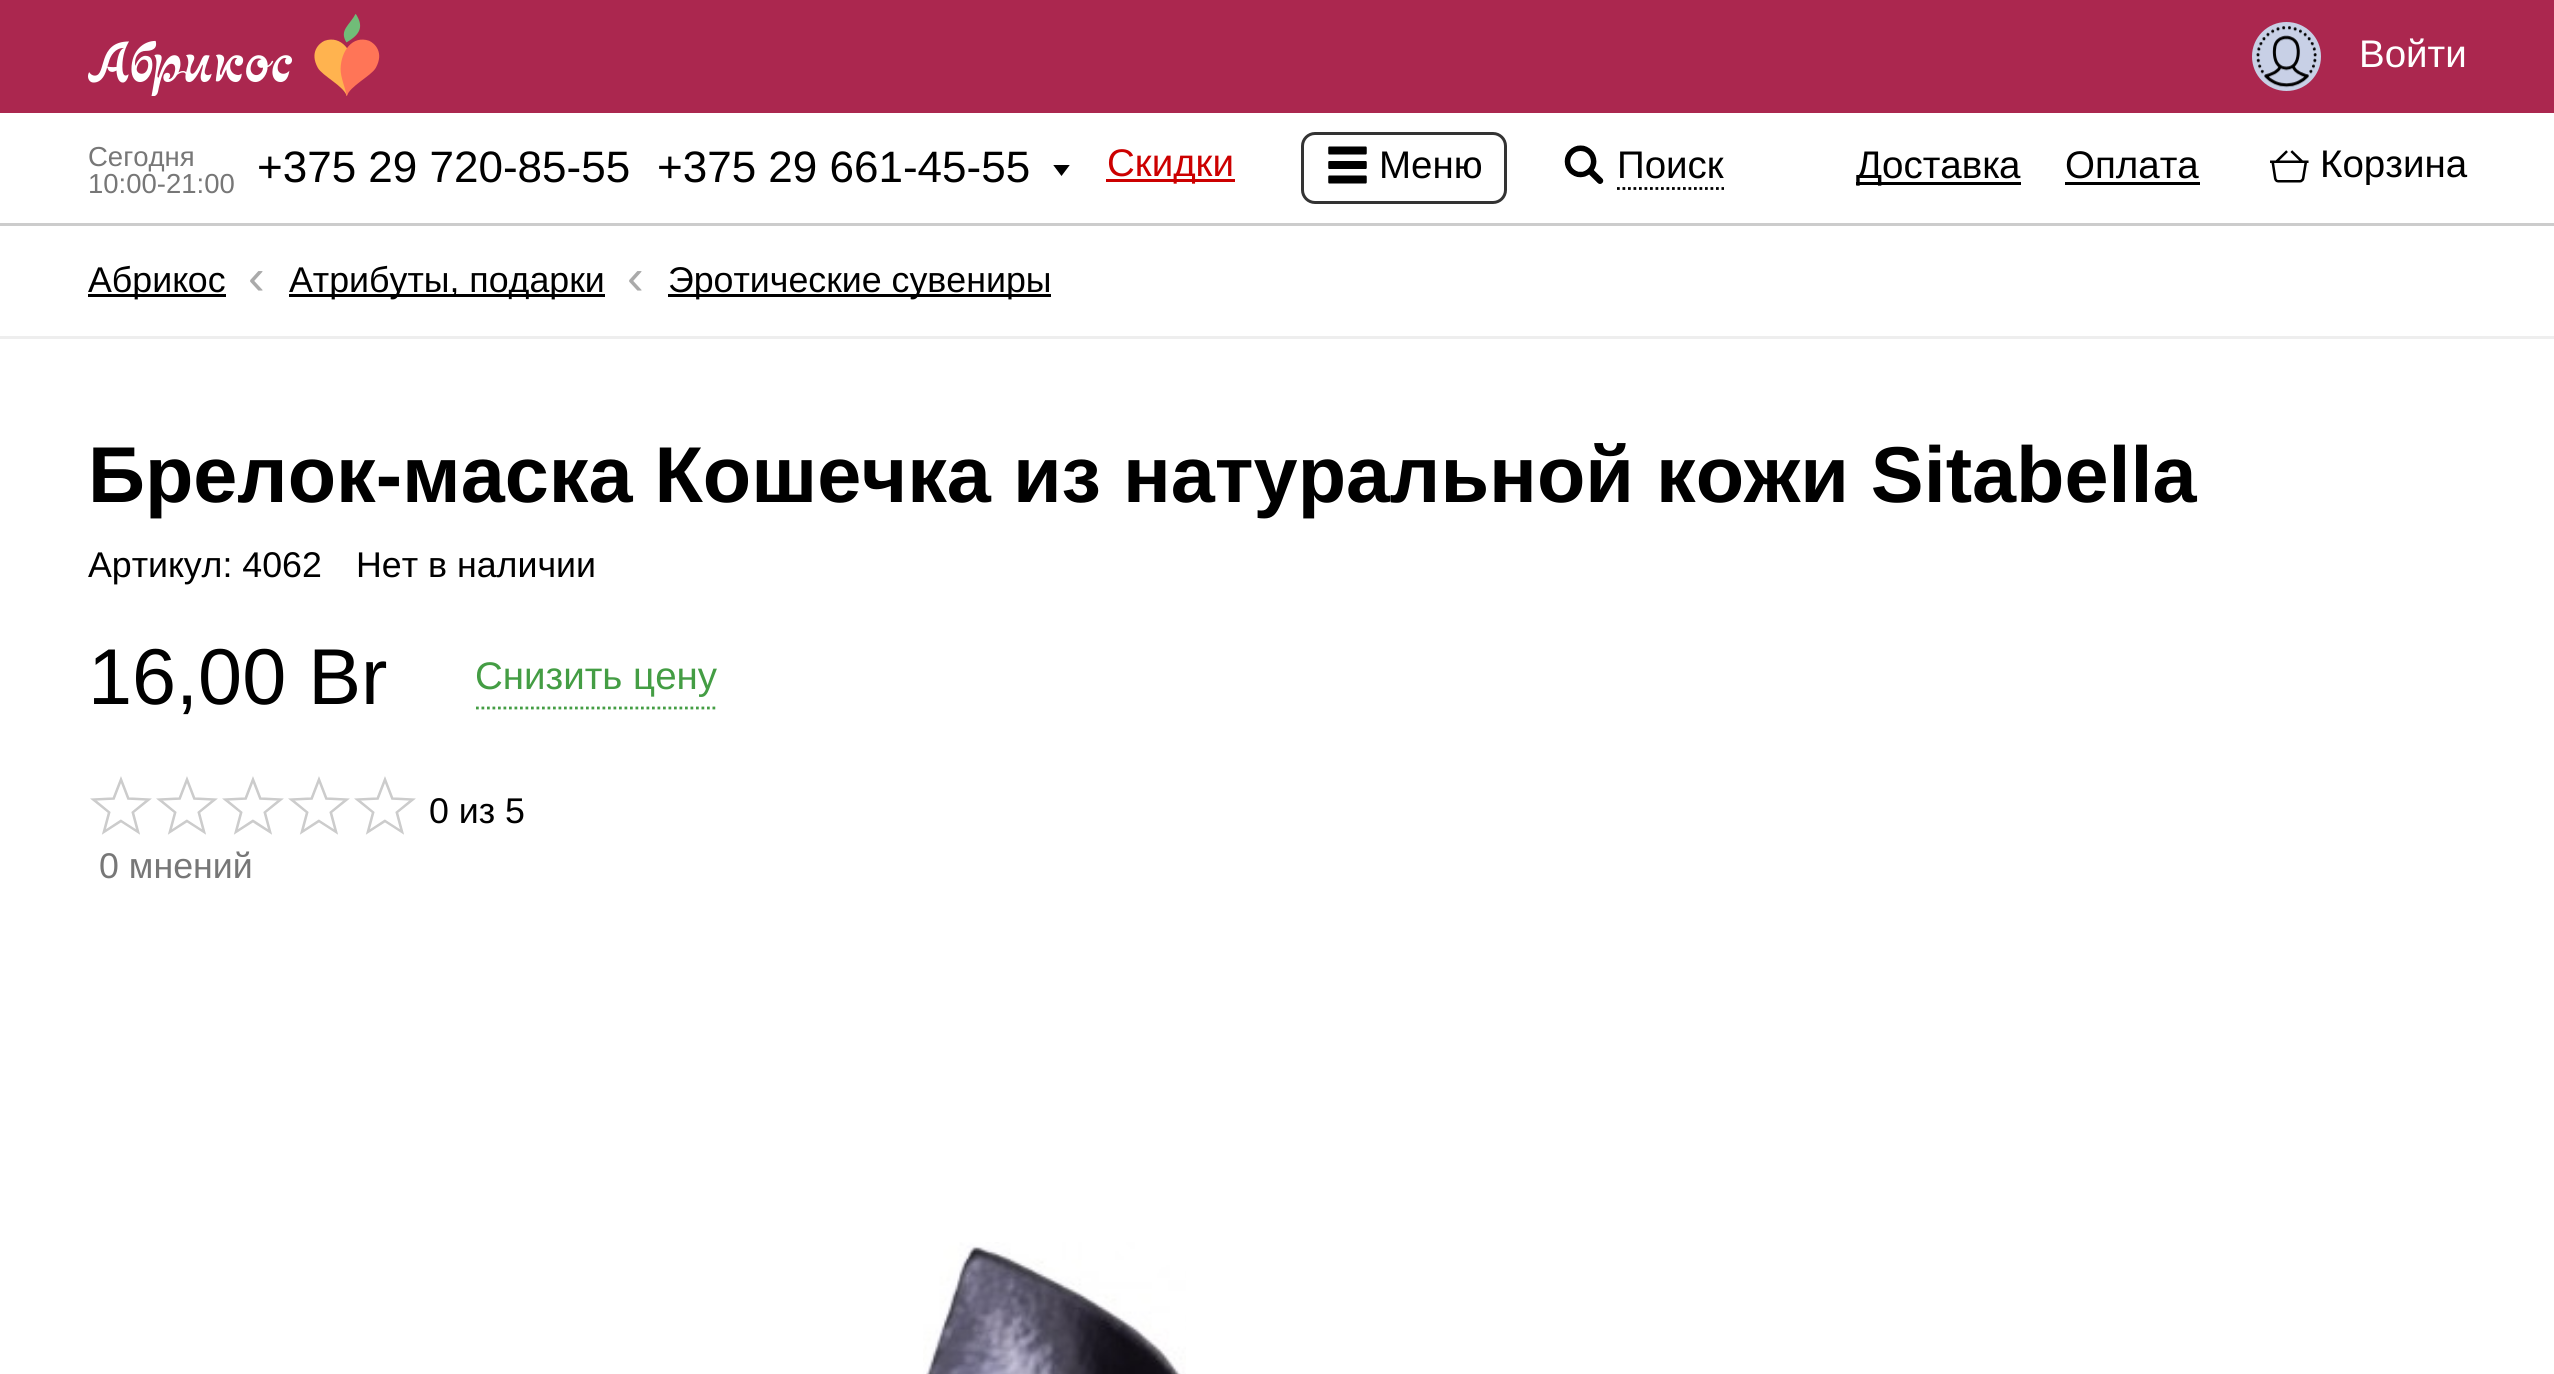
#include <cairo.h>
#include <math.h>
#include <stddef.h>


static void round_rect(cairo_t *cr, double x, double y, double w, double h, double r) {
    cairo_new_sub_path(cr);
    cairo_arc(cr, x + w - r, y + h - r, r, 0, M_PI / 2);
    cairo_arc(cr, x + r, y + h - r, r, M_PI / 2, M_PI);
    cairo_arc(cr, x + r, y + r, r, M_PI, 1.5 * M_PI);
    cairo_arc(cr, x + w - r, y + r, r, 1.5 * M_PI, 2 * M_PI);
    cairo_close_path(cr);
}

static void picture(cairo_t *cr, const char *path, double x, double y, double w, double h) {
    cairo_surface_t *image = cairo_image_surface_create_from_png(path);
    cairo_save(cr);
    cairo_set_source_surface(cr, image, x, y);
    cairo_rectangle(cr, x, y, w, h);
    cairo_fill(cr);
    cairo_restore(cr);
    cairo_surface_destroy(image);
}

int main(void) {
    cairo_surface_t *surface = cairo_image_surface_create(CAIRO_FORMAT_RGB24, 2554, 1374);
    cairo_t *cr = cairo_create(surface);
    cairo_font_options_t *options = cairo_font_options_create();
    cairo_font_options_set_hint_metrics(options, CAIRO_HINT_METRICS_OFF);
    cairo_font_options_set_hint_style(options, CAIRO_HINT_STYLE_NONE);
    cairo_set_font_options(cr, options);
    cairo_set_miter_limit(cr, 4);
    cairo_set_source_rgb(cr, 0.671, 0.153, 0.31);
    cairo_paint(cr);
    picture(cr, "img1.png", 88, 14, 292, 82);
    cairo_set_source_rgb(cr, 0.784, 0.816, 0.902);
    cairo_arc(cr, 2286.5, 56.5, 34.5, 0, 2 * M_PI);
    cairo_fill(cr);
    picture(cr, "img2.png", 2256, 26, 61, 62);
    cairo_select_font_face(cr, "Liberation Sans", CAIRO_FONT_SLANT_NORMAL, CAIRO_FONT_WEIGHT_NORMAL);
    cairo_set_font_size(cr, 38.5);
    cairo_set_source_rgb(cr, 1, 1, 1);
    cairo_move_to(cr, 2359, 67);
    cairo_show_text(cr, "Войти");
    cairo_rectangle(cr, 0, 113, 2554, 110);
    cairo_fill(cr);
    cairo_set_source_rgb(cr, 0.8, 0.8, 0.8);
    cairo_rectangle(cr, 0, 223, 2554, 3);
    cairo_fill(cr);
    cairo_set_font_size(cr, 27.5);
    cairo_set_source_rgb(cr, 0.467, 0.467, 0.467);
    cairo_move_to(cr, 88, 166);
    cairo_show_text(cr, "Сегодня");
    cairo_move_to(cr, 88, 193);
    cairo_show_text(cr, "10:00-21:00");
    cairo_set_font_size(cr, 44);
    cairo_set_source_rgb(cr, 0, 0, 0);
    cairo_move_to(cr, 257, 182);
    cairo_show_text(cr, "+375 29 720-85-55");
    cairo_move_to(cr, 657, 182);
    cairo_show_text(cr, "+375 29 661-45-55");
    picture(cr, "img3.png", 1053, 165, 17, 11);
    cairo_set_source_rgb(cr, 0.8, 0, 0);
    cairo_rectangle(cr, 1106, 179, 129, 3);
    cairo_fill(cr);
    cairo_set_font_size(cr, 38.5);
    cairo_move_to(cr, 1107, 176);
    cairo_show_text(cr, "Скидки");
    round_rect(cr, 1302.5, 133.5, 203, 69, 12.5);
    cairo_set_source_rgb(cr, 0.2, 0.2, 0.2);
    cairo_set_line_width(cr, 3);
    cairo_stroke(cr);
    picture(cr, "img4.png", 1328, 146, 39, 38);
    cairo_set_source_rgb(cr, 0, 0, 0);
    cairo_move_to(cr, 1379, 178);
    cairo_show_text(cr, "Меню");
    picture(cr, "img5.png", 1564, 145, 40, 39);
    cairo_move_to(cr, 1617, 178);
    cairo_show_text(cr, "Поиск");
    cairo_new_path(cr);
    cairo_move_to(cr, 1617, 188.5);
    cairo_line_to(cr, 1724, 188.5);
    cairo_set_line_width(cr, 2.8);
    cairo_set_dash(cr, (double[]){2.75, 2.75}, 2, 0);
    cairo_stroke(cr);
    cairo_rectangle(cr, 1856, 182, 165, 3);
    cairo_fill(cr);
    cairo_move_to(cr, 1856, 178);
    cairo_show_text(cr, "Доставка");
    cairo_move_to(cr, 2065, 178);
    cairo_show_text(cr, "Оплата");
    cairo_rectangle(cr, 2065, 182, 135, 3);
    cairo_fill(cr);
    picture(cr, "img6.png", 2270, 150, 39, 33);
    cairo_move_to(cr, 2320, 177);
    cairo_show_text(cr, "Корзина");
    cairo_set_source_rgb(cr, 1, 1, 1);
    cairo_rectangle(cr, 0, 226, 2554, 1148);
    cairo_fill(cr);
    cairo_set_source_rgb(cr, 0.933, 0.933, 0.933);
    cairo_rectangle(cr, 0, 336, 2554, 3);
    cairo_fill(cr);
    cairo_set_source_rgb(cr, 0, 0, 0);
    cairo_rectangle(cr, 88, 294, 138, 3);
    cairo_fill(cr);
    cairo_set_font_size(cr, 35.75);
    cairo_move_to(cr, 88, 292);
    cairo_show_text(cr, "Абрикос");
    cairo_set_font_size(cr, 50);
    cairo_set_source_rgb(cr, 0.667, 0.667, 0.667);
    cairo_move_to(cr, 248, 294);
    cairo_show_text(cr, "‹");
    cairo_set_source_rgb(cr, 0, 0, 0);
    cairo_rectangle(cr, 289, 294, 316, 3);
    cairo_fill(cr);
    cairo_set_font_size(cr, 35.75);
    cairo_move_to(cr, 289, 292);
    cairo_show_text(cr, "Атрибуты, подарки");
    cairo_set_font_size(cr, 50);
    cairo_set_source_rgb(cr, 0.667, 0.667, 0.667);
    cairo_move_to(cr, 627, 294);
    cairo_show_text(cr, "‹");
    cairo_set_source_rgb(cr, 0, 0, 0);
    cairo_rectangle(cr, 668, 294, 383, 3);
    cairo_fill(cr);
    cairo_set_font_size(cr, 35.75);
    cairo_move_to(cr, 668, 292);
    cairo_show_text(cr, "Эротические сувениры");
    cairo_select_font_face(cr, "Liberation Sans", CAIRO_FONT_SLANT_NORMAL, CAIRO_FONT_WEIGHT_BOLD);
    cairo_set_font_size(cr, 79.2);
    cairo_move_to(cr, 88, 502);
    cairo_show_text(cr, "Брелок-маска Кошечка из натуральной кожи Sitabella");
    cairo_select_font_face(cr, "Liberation Sans", CAIRO_FONT_SLANT_NORMAL, CAIRO_FONT_WEIGHT_NORMAL);
    cairo_set_font_size(cr, 35.75);
    cairo_move_to(cr, 88, 577);
    cairo_show_text(cr, "Артикул: 4062");
    cairo_move_to(cr, 356, 577);
    cairo_show_text(cr, "Нет в наличии");
    cairo_set_font_size(cr, 79.2);
    cairo_move_to(cr, 88, 704);
    cairo_show_text(cr, "16,00 Br");
    cairo_new_path(cr);
    cairo_move_to(cr, 476, 708);
    cairo_line_to(cr, 718, 708);
    cairo_set_source_rgb(cr, 0.267, 0.616, 0.267);
    cairo_stroke(cr);
    cairo_set_font_size(cr, 38.5);
    cairo_move_to(cr, 475, 689);
    cairo_show_text(cr, "Снизить цену");
    picture(cr, "img7.png", 90, 776, 62, 59);
    picture(cr, "img7.png", 156, 776, 62, 59);
    picture(cr, "img8.png", 222, 776, 62, 59);
    picture(cr, "img7.png", 288, 776, 62, 59);
    picture(cr, "img7.png", 354, 776, 62, 59);
    cairo_set_font_size(cr, 35.75);
    cairo_set_source_rgb(cr, 0, 0, 0);
    cairo_move_to(cr, 429, 823);
    cairo_show_text(cr, "0 из 5");
    cairo_set_source_rgb(cr, 0.467, 0.467, 0.467);
    cairo_move_to(cr, 99, 878);
    cairo_show_text(cr, "0 мнений");
    picture(cr, "img9.png", 923, 1242, 263, 132);
    cairo_surface_write_to_png(surface, "page.png");
    cairo_font_options_destroy(options);
    cairo_destroy(cr);
    cairo_surface_destroy(surface);
    return 0;
}
